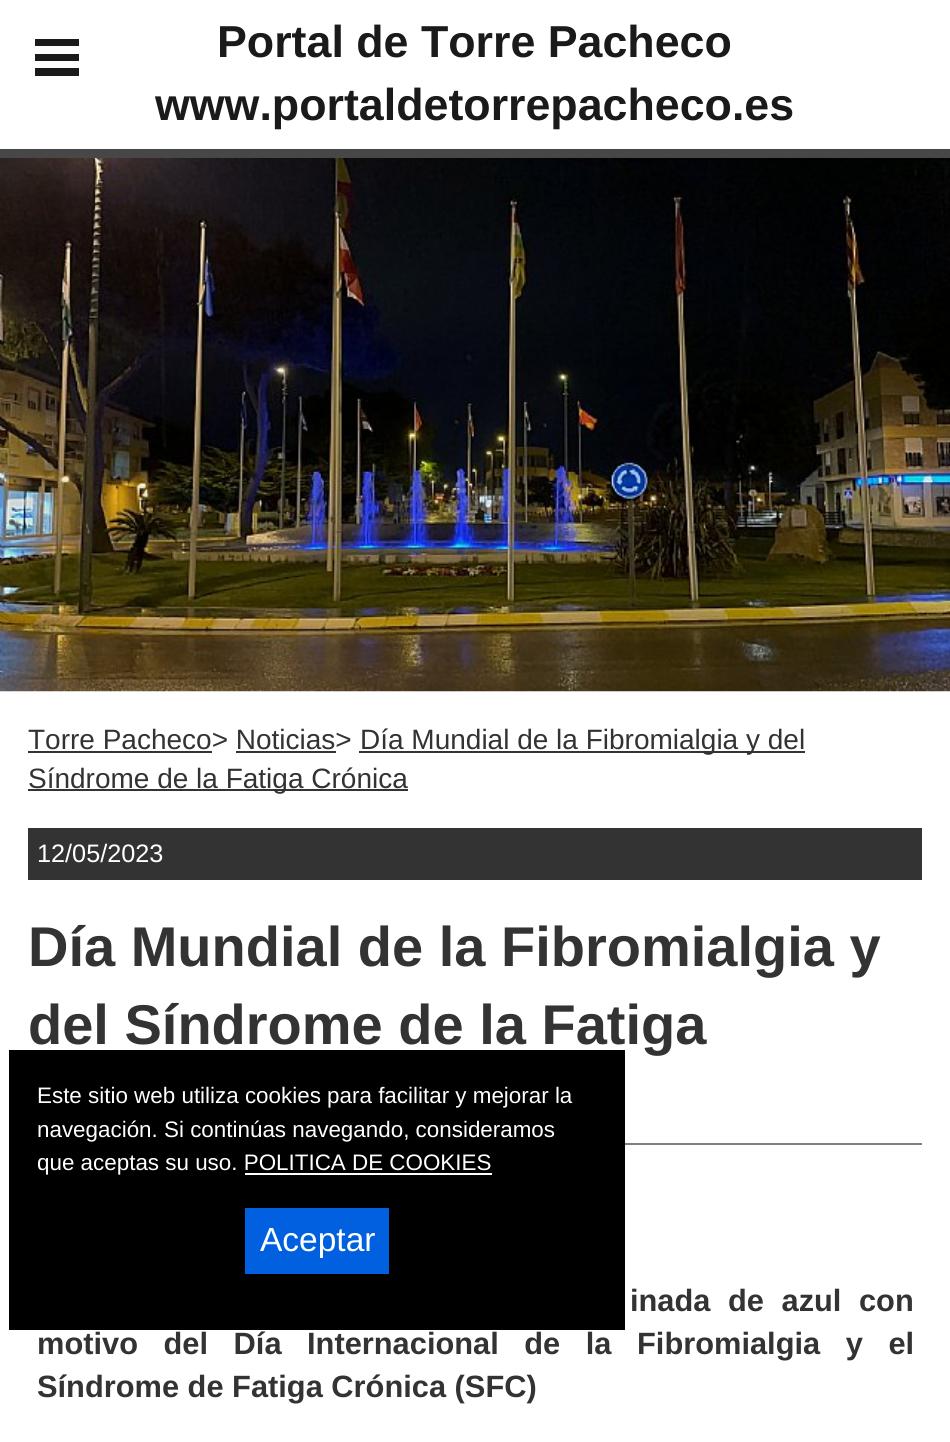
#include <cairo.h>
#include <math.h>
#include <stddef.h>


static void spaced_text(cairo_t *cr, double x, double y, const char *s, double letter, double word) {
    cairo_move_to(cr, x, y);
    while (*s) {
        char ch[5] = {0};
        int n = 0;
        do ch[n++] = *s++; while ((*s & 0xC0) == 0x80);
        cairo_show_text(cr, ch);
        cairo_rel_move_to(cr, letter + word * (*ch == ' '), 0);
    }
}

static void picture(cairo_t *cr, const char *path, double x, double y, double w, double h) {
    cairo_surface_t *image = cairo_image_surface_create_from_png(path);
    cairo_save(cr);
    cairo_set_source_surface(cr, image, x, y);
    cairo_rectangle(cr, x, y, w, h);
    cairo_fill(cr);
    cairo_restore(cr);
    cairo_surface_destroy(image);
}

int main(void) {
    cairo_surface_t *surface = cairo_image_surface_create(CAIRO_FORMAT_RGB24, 950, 1442);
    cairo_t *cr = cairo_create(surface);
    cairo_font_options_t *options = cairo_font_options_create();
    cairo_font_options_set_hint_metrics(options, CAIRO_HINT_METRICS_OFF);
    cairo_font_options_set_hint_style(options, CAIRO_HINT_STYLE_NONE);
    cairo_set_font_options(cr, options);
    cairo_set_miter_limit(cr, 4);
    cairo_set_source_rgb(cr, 1, 1, 1);
    cairo_paint(cr);
    picture(cr, "img1.png", 0, 157, 950, 535);
    cairo_set_source_rgba(cr, 1, 1, 1, 0.9);
    cairo_rectangle(cr, 0, 157, 950, 1);
    cairo_fill(cr);
    cairo_set_source_rgba(cr, 0.2, 0.2, 0.2, 0.9);
    cairo_rectangle(cr, 0, 149, 950, 9);
    cairo_fill(cr);
    cairo_set_source_rgb(cr, 0.102, 0.102, 0.102);
    cairo_set_fill_rule(cr, CAIRO_FILL_RULE_EVEN_ODD);
    cairo_new_path(cr);
    cairo_move_to(cr, 79, 46);
    cairo_line_to(cr, 35, 46);
    cairo_line_to(cr, 35, 39);
    cairo_line_to(cr, 79, 39);
    cairo_close_path(cr);
    cairo_move_to(cr, 79, 61);
    cairo_line_to(cr, 35, 61);
    cairo_line_to(cr, 35, 54);
    cairo_line_to(cr, 79, 54);
    cairo_close_path(cr);
    cairo_move_to(cr, 35, 76);
    cairo_line_to(cr, 79, 76);
    cairo_line_to(cr, 79, 68);
    cairo_line_to(cr, 35, 68);
    cairo_close_path(cr);
    cairo_fill(cr);
    cairo_select_font_face(cr, "Liberation Sans", CAIRO_FONT_SLANT_NORMAL, CAIRO_FONT_WEIGHT_BOLD);
    cairo_set_font_size(cr, 44.75);
    cairo_move_to(cr, 217, 57);
    cairo_show_text(cr, "Portal de Torre Pacheco");
    cairo_move_to(cr, 155, 120);
    cairo_show_text(cr, "www.portaldetorrepacheco.es");
    cairo_select_font_face(cr, "Liberation Sans", CAIRO_FONT_SLANT_NORMAL, CAIRO_FONT_WEIGHT_NORMAL);
    cairo_set_font_size(cr, 28);
    cairo_set_source_rgb(cr, 0.2, 0.2, 0.2);
    cairo_move_to(cr, 28, 749);
    cairo_show_text(cr, "Torre Pacheco> Noticias>");
    cairo_rectangle(cr, 28, 751, 184, 2);
    cairo_fill(cr);
    cairo_rectangle(cr, 359, 751, 446, 2);
    cairo_fill(cr);
    cairo_move_to(cr, 360, 749);
    cairo_show_text(cr, "Día Mundial de la Fibromialgia y del");
    cairo_rectangle(cr, 236, 751, 100, 2);
    cairo_fill(cr);
    cairo_rectangle(cr, 28, 789, 380, 2);
    cairo_fill(cr);
    cairo_move_to(cr, 28, 788);
    cairo_show_text(cr, "Síndrome de la Fatiga Crónica");
    cairo_rectangle(cr, 28, 828, 894, 52);
    cairo_fill(cr);
    cairo_set_font_size(cr, 25.25);
    cairo_set_source_rgb(cr, 1, 1, 1);
    cairo_move_to(cr, 37, 862);
    cairo_show_text(cr, "12/05/2023");
    cairo_set_source_rgb(cr, 0.502, 0.502, 0.502);
    cairo_rectangle(cr, 625, 1143, 297, 2);
    cairo_fill(cr);
    cairo_select_font_face(cr, "Liberation Sans", CAIRO_FONT_SLANT_NORMAL, CAIRO_FONT_WEIGHT_BOLD);
    cairo_set_font_size(cr, 56);
    cairo_set_source_rgb(cr, 0.2, 0.2, 0.2);
    cairo_move_to(cr, 28, 966);
    cairo_show_text(cr, "Día Mundial de la Fibromialgia y");
    cairo_move_to(cr, 28, 1044);
    cairo_show_text(cr, "del Síndrome de la Fatiga");
    cairo_set_font_size(cr, 30.8);
    spaced_text(cr, 630, 1311, "inada de azul con", 0, 9);
    spaced_text(cr, 37, 1354, "motivo del Día Internacional de la Fibromialgia y el", 0, 17);
    cairo_move_to(cr, 37, 1397);
    cairo_show_text(cr, "Síndrome de Fatiga Crónica (SFC)");
    cairo_set_source_rgb(cr, 0, 0, 0);
    cairo_rectangle(cr, 9, 1050, 616, 280);
    cairo_fill(cr);
    cairo_select_font_face(cr, "Liberation Sans", CAIRO_FONT_SLANT_NORMAL, CAIRO_FONT_WEIGHT_NORMAL);
    cairo_set_font_size(cr, 22.4);
    cairo_set_source_rgb(cr, 1, 1, 1);
    cairo_move_to(cr, 37, 1103);
    cairo_show_text(cr, "Este sitio web utiliza cookies para facilitar y mejorar la");
    cairo_move_to(cr, 37, 1137);
    cairo_show_text(cr, "navegación. Si continúas navegando, consideramos");
    cairo_move_to(cr, 37, 1170);
    cairo_show_text(cr, "que aceptas su uso. POLITICA DE COOKIES");
    cairo_rectangle(cr, 245, 1173, 247, 2);
    cairo_fill(cr);
    cairo_set_source_rgb(cr, 0, 0.376, 0.875);
    cairo_rectangle(cr, 245, 1208, 144, 66);
    cairo_fill(cr);
    cairo_set_font_size(cr, 33.5);
    cairo_set_source_rgb(cr, 1, 1, 1);
    cairo_move_to(cr, 260, 1251);
    cairo_show_text(cr, "Aceptar");
    cairo_surface_write_to_png(surface, "page.png");
    cairo_font_options_destroy(options);
    cairo_destroy(cr);
    cairo_surface_destroy(surface);
    return 0;
}
